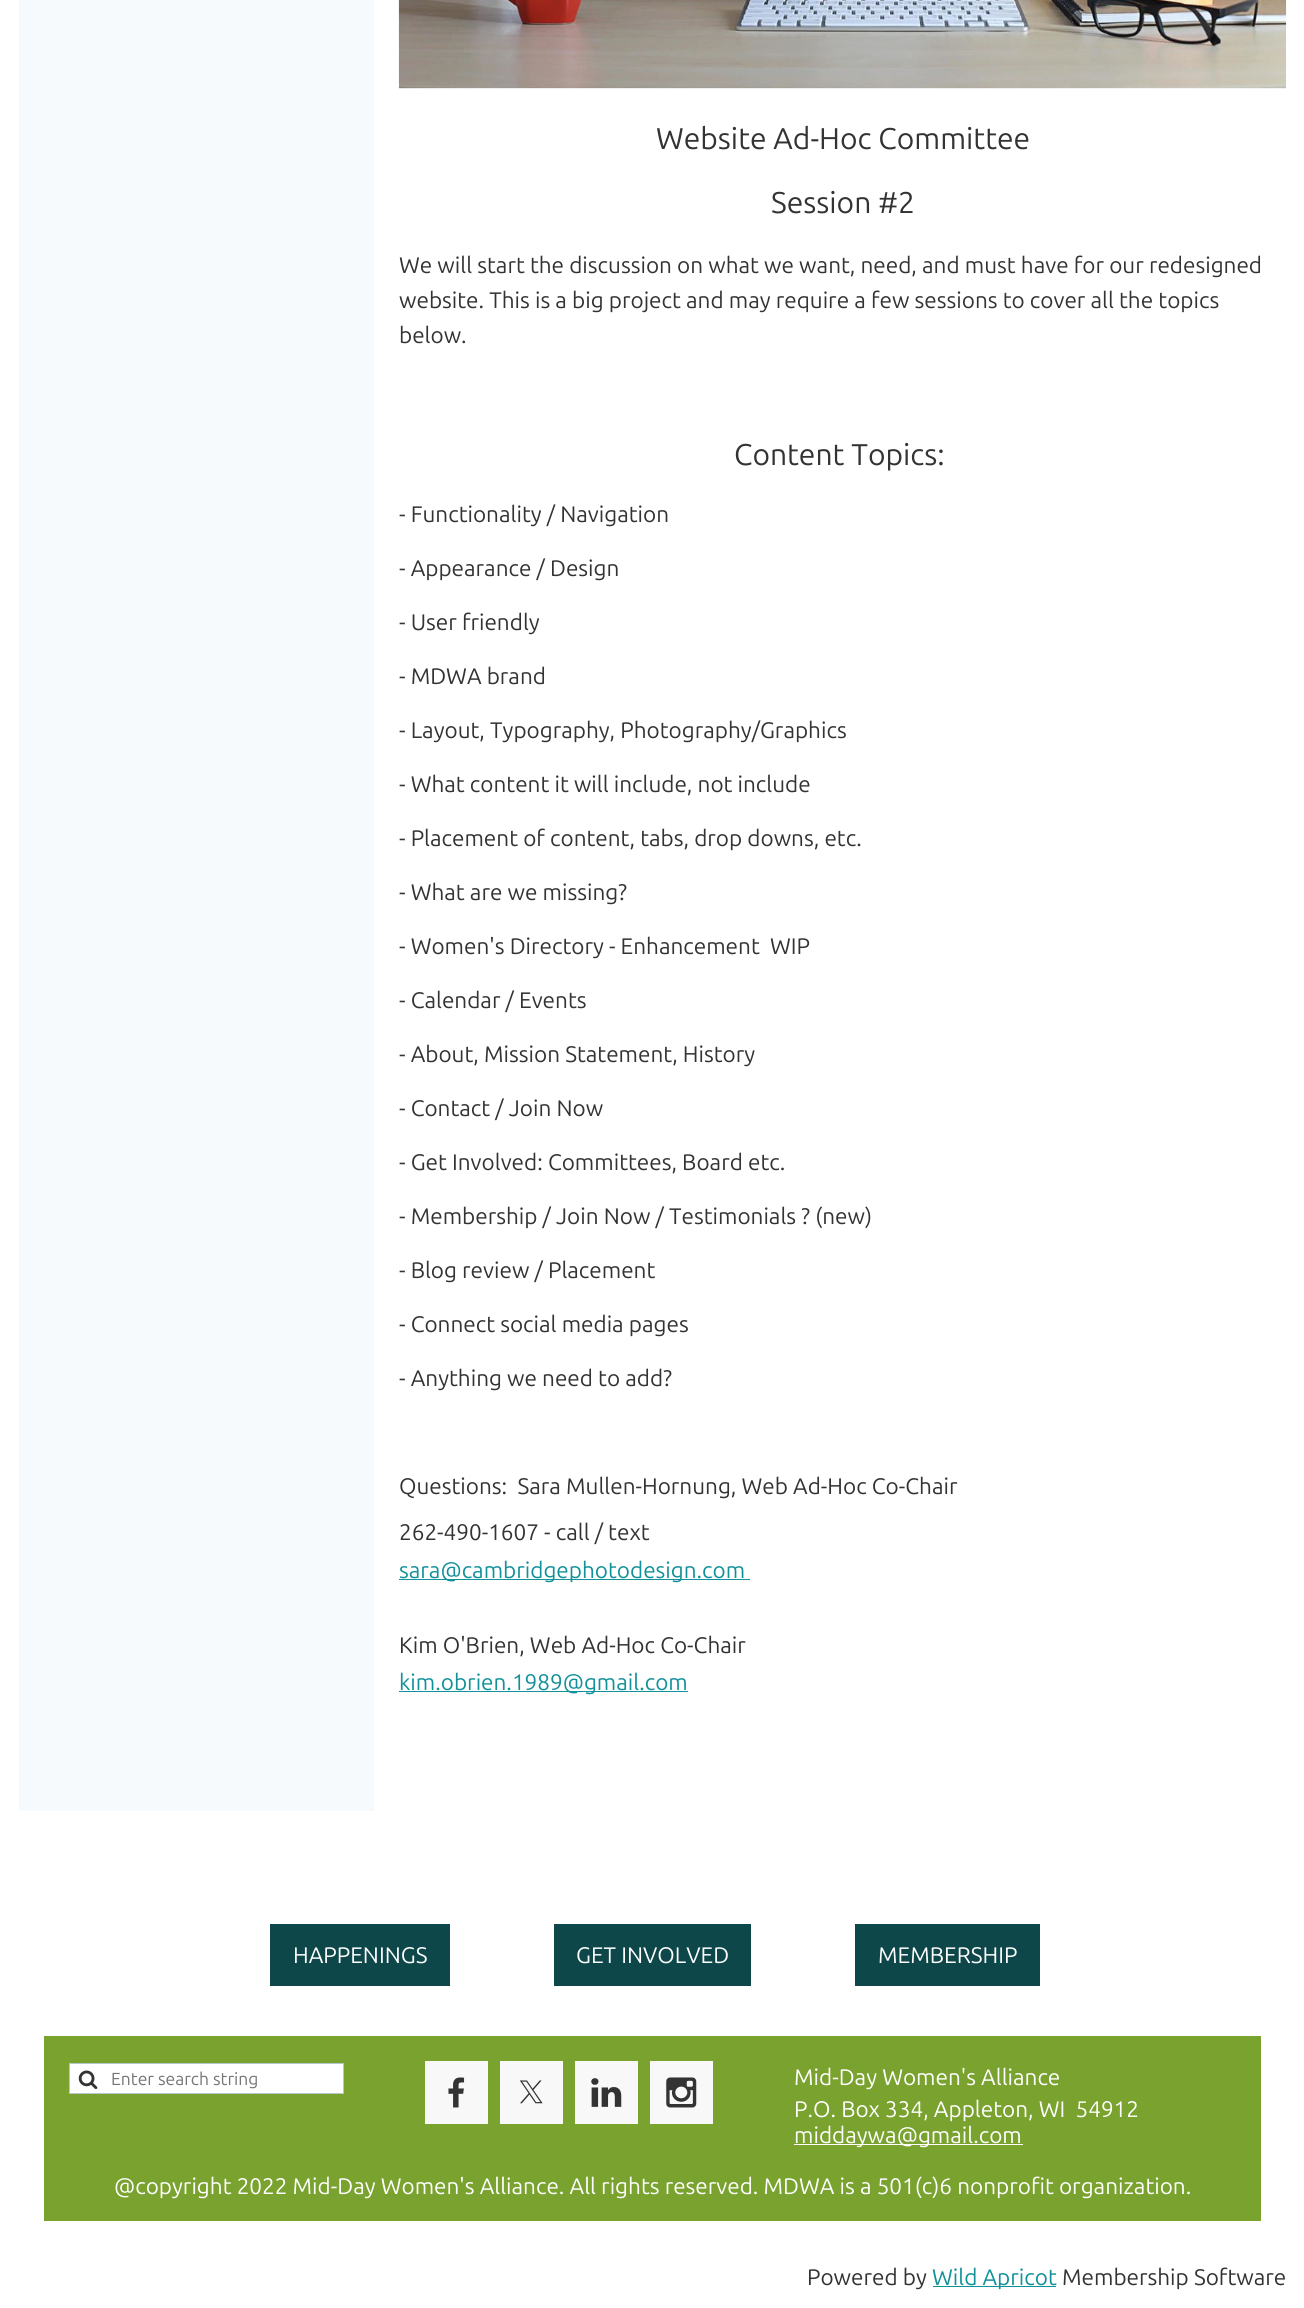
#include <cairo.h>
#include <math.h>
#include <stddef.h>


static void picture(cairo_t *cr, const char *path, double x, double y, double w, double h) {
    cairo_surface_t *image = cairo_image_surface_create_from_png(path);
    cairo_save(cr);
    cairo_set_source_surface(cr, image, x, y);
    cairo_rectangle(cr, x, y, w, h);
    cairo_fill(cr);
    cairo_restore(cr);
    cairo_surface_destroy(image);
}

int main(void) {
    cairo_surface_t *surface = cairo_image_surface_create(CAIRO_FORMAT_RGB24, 1304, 2308);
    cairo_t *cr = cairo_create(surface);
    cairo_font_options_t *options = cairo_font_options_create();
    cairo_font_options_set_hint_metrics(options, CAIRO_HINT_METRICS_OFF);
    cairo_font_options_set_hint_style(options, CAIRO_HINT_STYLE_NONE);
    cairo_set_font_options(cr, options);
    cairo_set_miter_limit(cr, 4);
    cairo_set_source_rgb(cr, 1, 1, 1);
    cairo_paint(cr);
    cairo_set_source_rgb(cr, 0.965, 0.98, 0.992);
    cairo_rectangle(cr, 19, 0, 355, 1811);
    cairo_fill(cr);
    picture(cr, "img1.png", 398, 0, 889, 89);
    cairo_select_font_face(cr, "Ubuntu", CAIRO_FONT_SLANT_NORMAL, CAIRO_FONT_WEIGHT_NORMAL);
    cairo_set_font_size(cr, 30);
    cairo_set_source_rgb(cr, 0.2, 0.2, 0.2);
    cairo_move_to(cr, 656, 149);
    cairo_show_text(cr, "Website Ad-Hoc Committee");
    cairo_move_to(cr, 771, 213);
    cairo_show_text(cr, "Session #2");
    cairo_set_font_size(cr, 22.5);
    cairo_move_to(cr, 399, 273);
    cairo_show_text(cr, "We will start the discussion on what we want, need, and must have for our redesigned");
    cairo_move_to(cr, 399, 308);
    cairo_show_text(cr, "website. This is a big project and may require a few sessions to cover all the topics");
    cairo_move_to(cr, 399, 343);
    cairo_show_text(cr, "below.");
    cairo_set_font_size(cr, 30);
    cairo_move_to(cr, 734, 465);
    cairo_show_text(cr, "Content Topics:");
    cairo_set_font_size(cr, 22.5);
    cairo_move_to(cr, 399, 522);
    cairo_show_text(cr, "- Functionality / Navigation");
    cairo_move_to(cr, 399, 576);
    cairo_show_text(cr, "- Appearance / Design");
    cairo_move_to(cr, 399, 630);
    cairo_show_text(cr, "- User friendly");
    cairo_move_to(cr, 399, 684);
    cairo_show_text(cr, "- MDWA brand");
    cairo_move_to(cr, 399, 738);
    cairo_show_text(cr, "- Layout, Typography, Photography/Graphics");
    cairo_move_to(cr, 399, 792);
    cairo_show_text(cr, "- What content it will include, not include");
    cairo_move_to(cr, 399, 846);
    cairo_show_text(cr, "- Placement of content, tabs, drop downs, etc.");
    cairo_move_to(cr, 399, 900);
    cairo_show_text(cr, "- What are we missing?");
    cairo_move_to(cr, 399, 954);
    cairo_show_text(cr, "- Women's Directory - Enhancement  WIP");
    cairo_move_to(cr, 399, 1008);
    cairo_show_text(cr, "- Calendar / Events");
    cairo_move_to(cr, 399, 1062);
    cairo_show_text(cr, "- About, Mission Statement, History");
    cairo_move_to(cr, 399, 1116);
    cairo_show_text(cr, "- Contact / Join Now");
    cairo_move_to(cr, 399, 1170);
    cairo_show_text(cr, "- Get Involved: Committees, Board etc.");
    cairo_move_to(cr, 399, 1224);
    cairo_show_text(cr, "- Membership / Join Now / Testimonials ? (new)");
    cairo_move_to(cr, 399, 1278);
    cairo_show_text(cr, "- Blog review / Placement");
    cairo_move_to(cr, 399, 1332);
    cairo_show_text(cr, "- Connect social media pages");
    cairo_move_to(cr, 399, 1386);
    cairo_show_text(cr, "- Anything we need to add?");
    cairo_move_to(cr, 399, 1494);
    cairo_show_text(cr, "Questions:  Sara Mullen-Hornung, Web Ad-Hoc Co-Chair");
    cairo_move_to(cr, 399, 1540);
    cairo_show_text(cr, "262-490-1607 - call / text");
    cairo_set_source_rgb(cr, 0.067, 0.569, 0.6);
    cairo_rectangle(cr, 399, 1579, 351, 1);
    cairo_fill(cr);
    cairo_move_to(cr, 399, 1578);
    cairo_show_text(cr, "sara@cambridgephotodesign.com");
    cairo_set_source_rgb(cr, 0.2, 0.2, 0.2);
    cairo_move_to(cr, 399, 1653);
    cairo_show_text(cr, "Kim O'Brien, Web Ad-Hoc Co-Chair");
    cairo_set_source_rgb(cr, 0.067, 0.569, 0.6);
    cairo_rectangle(cr, 399, 1691, 289, 1);
    cairo_fill(cr);
    cairo_move_to(cr, 399, 1690);
    cairo_show_text(cr, "kim.obrien.1989@gmail.com");
    cairo_set_source_rgb(cr, 0.055, 0.278, 0.286);
    cairo_rectangle(cr, 270, 1924, 180, 62);
    cairo_fill(cr);
    cairo_set_source_rgb(cr, 1, 1, 1);
    cairo_move_to(cr, 293, 1963);
    cairo_show_text(cr, "HAPPENINGS");
    cairo_set_source_rgb(cr, 0.055, 0.278, 0.286);
    cairo_rectangle(cr, 554, 1924, 197, 62);
    cairo_fill(cr);
    cairo_set_source_rgb(cr, 1, 1, 1);
    cairo_move_to(cr, 576, 1963);
    cairo_show_text(cr, "GET INVOLVED");
    cairo_set_source_rgb(cr, 0.055, 0.278, 0.286);
    cairo_rectangle(cr, 855, 1924, 185, 62);
    cairo_fill(cr);
    cairo_set_source_rgb(cr, 1, 1, 1);
    cairo_move_to(cr, 878, 1963);
    cairo_show_text(cr, "MEMBERSHIP");
    cairo_set_source_rgb(cr, 0.475, 0.635, 0.18);
    cairo_rectangle(cr, 44, 2036, 1217, 185);
    cairo_fill(cr);
    cairo_set_source_rgb(cr, 1, 1, 1);
    cairo_rectangle(cr, 69.5, 2063.5, 274, 30);
    cairo_fill_preserve(cr);
    cairo_set_source_rgb(cr, 0.722, 0.776, 0.804);
    cairo_set_line_width(cr, 1);
    cairo_stroke(cr);
    picture(cr, "img2.png", 78, 2070, 20, 20);
    cairo_set_font_size(cr, 17.5);
    cairo_set_source_rgb(cr, 0.459, 0.459, 0.459);
    cairo_move_to(cr, 111, 2085);
    cairo_show_text(cr, "Enter search string");
    cairo_set_source_rgb(cr, 0.969, 0.969, 0.969);
    cairo_rectangle(cr, 425, 2061, 63, 63);
    cairo_fill(cr);
    picture(cr, "img3.png", 448, 2077, 17, 31);
    cairo_rectangle(cr, 500, 2061, 63, 63);
    cairo_fill(cr);
    picture(cr, "img4.png", 519, 2080, 24, 24);
    cairo_rectangle(cr, 575, 2061, 63, 63);
    cairo_fill(cr);
    picture(cr, "img5.png", 591, 2078, 31, 29);
    cairo_rectangle(cr, 650, 2061, 63, 63);
    cairo_fill(cr);
    picture(cr, "img6.png", 666, 2077, 31, 31);
    cairo_set_font_size(cr, 22.5);
    cairo_set_source_rgb(cr, 1, 1, 1);
    cairo_move_to(cr, 794, 2085);
    cairo_show_text(cr, "Mid-Day Women's Alliance");
    cairo_move_to(cr, 794, 2117);
    cairo_show_text(cr, "P.O. Box 334, Appleton, WI  54912");
    cairo_rectangle(cr, 794, 2144, 229, 1);
    cairo_fill(cr);
    cairo_move_to(cr, 794, 2143);
    cairo_show_text(cr, "middaywa@gmail.com");
    cairo_move_to(cr, 114, 2194);
    cairo_show_text(cr, "@copyright 2022 Mid-Day Women's Alliance. All rights reserved. MDWA is a 501(c)6 nonprofit organization.");
    cairo_set_source_rgb(cr, 0.2, 0.2, 0.2);
    cairo_move_to(cr, 807, 2285);
    cairo_show_text(cr, "Powered by");
    cairo_set_source_rgb(cr, 0.067, 0.569, 0.6);
    cairo_rectangle(cr, 933, 2286, 123, 1);
    cairo_fill(cr);
    cairo_move_to(cr, 932, 2285);
    cairo_show_text(cr, "Wild Apricot");
    cairo_set_source_rgb(cr, 0.2, 0.2, 0.2);
    cairo_move_to(cr, 1062, 2285);
    cairo_show_text(cr, "Membership Software");
    cairo_surface_write_to_png(surface, "page.png");
    cairo_font_options_destroy(options);
    cairo_destroy(cr);
    cairo_surface_destroy(surface);
    return 0;
}
